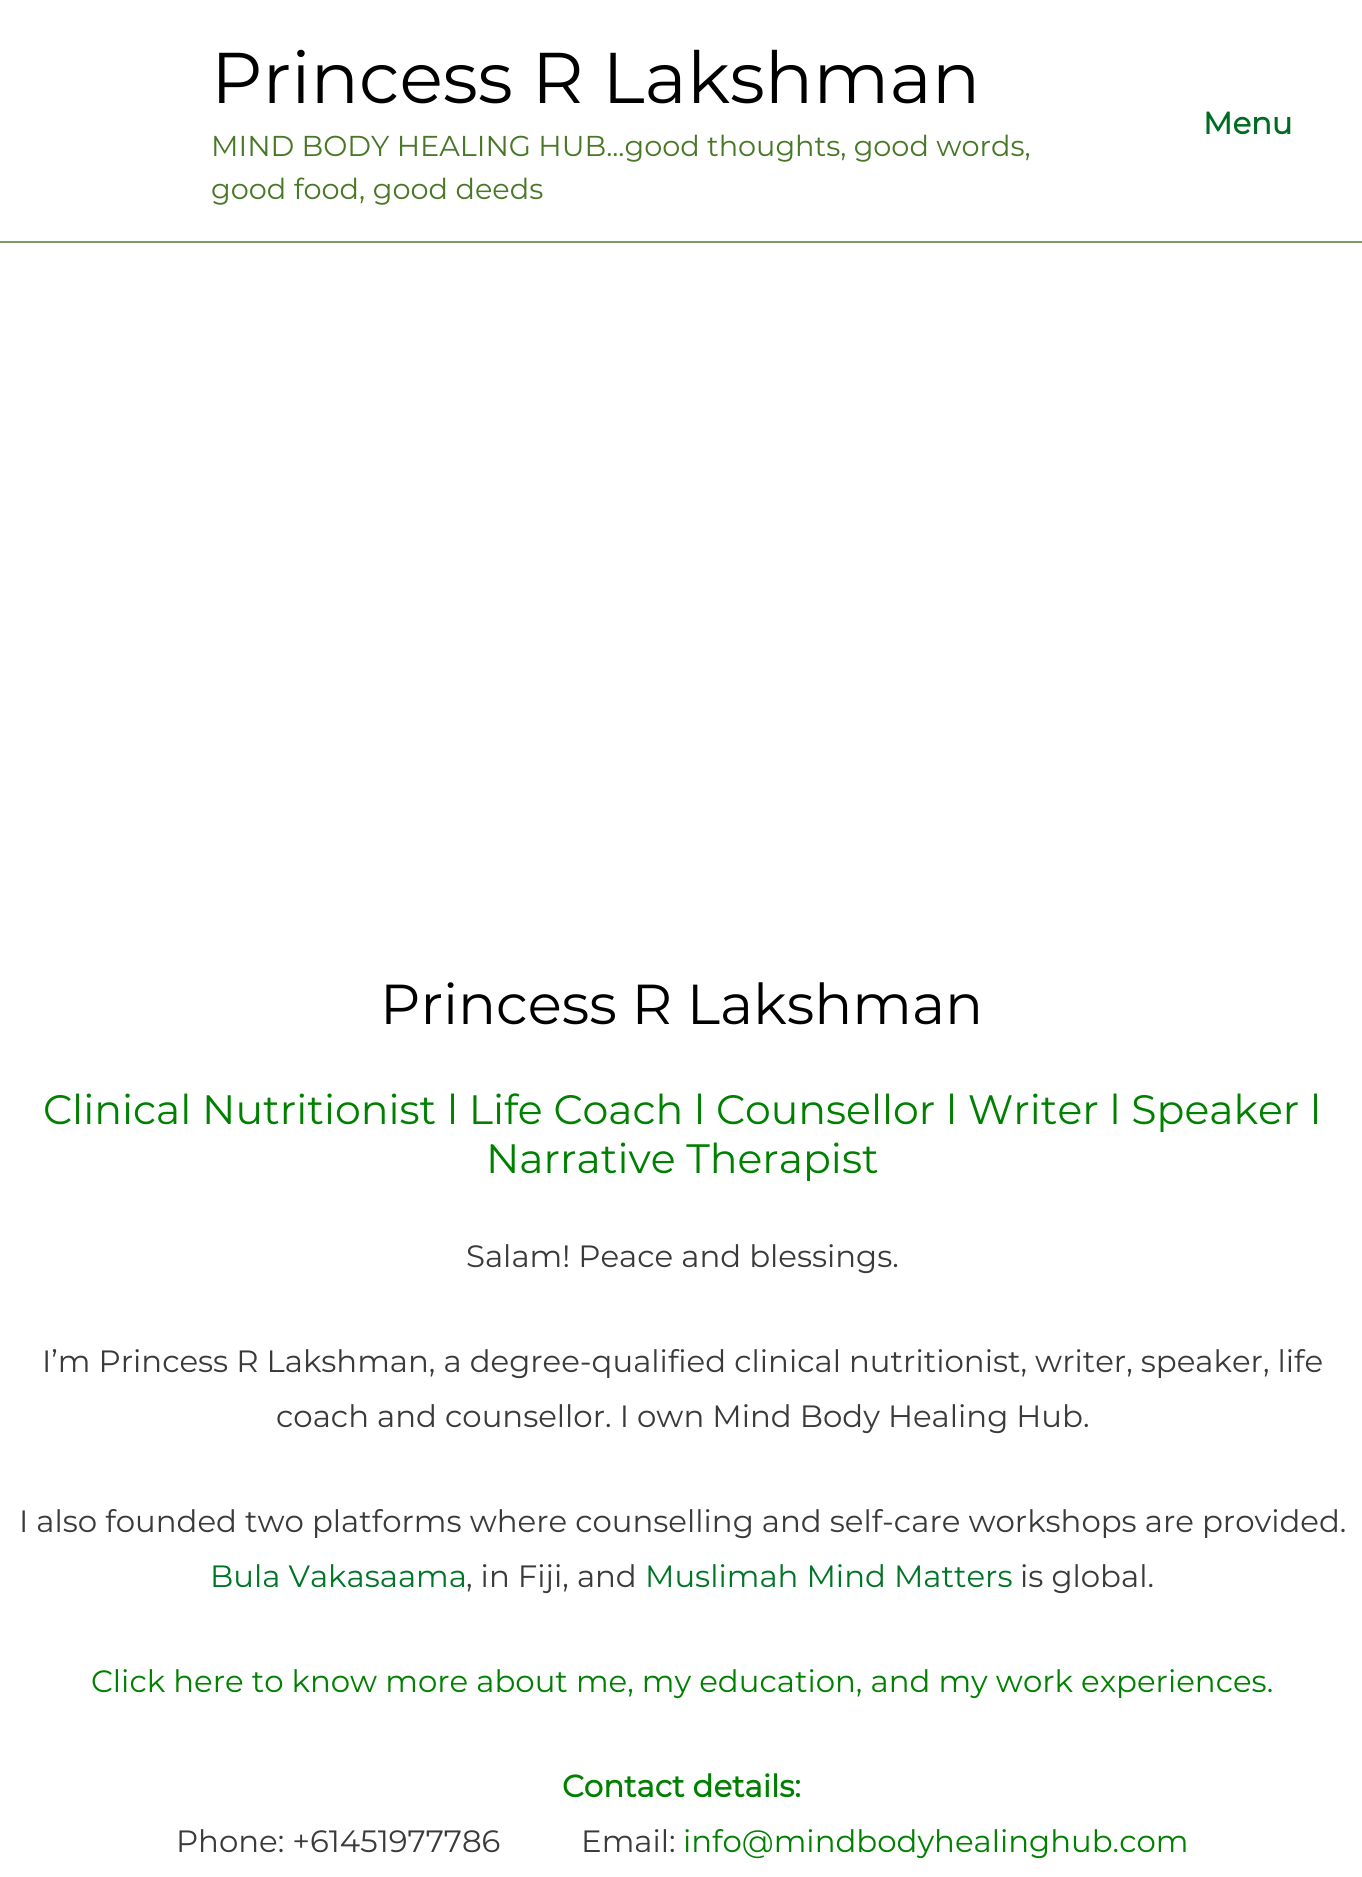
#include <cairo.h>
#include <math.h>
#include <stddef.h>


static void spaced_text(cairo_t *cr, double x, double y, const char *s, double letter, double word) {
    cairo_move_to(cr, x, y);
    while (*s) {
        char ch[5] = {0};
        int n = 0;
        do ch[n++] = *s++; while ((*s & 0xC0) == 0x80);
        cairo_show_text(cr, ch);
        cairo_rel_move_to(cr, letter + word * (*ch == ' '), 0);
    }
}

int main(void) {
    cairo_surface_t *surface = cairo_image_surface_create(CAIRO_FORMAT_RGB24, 1362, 1877);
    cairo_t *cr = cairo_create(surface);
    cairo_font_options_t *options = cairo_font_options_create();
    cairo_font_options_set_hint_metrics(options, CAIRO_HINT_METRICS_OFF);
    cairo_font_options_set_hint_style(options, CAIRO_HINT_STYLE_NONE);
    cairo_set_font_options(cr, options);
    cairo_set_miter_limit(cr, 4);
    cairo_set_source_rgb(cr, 1, 1, 1);
    cairo_paint(cr);
    cairo_set_source_rgb(cr, 0.486, 0.616, 0.396);
    cairo_rectangle(cr, 0, 241, 1362, 2);
    cairo_fill(cr);
    cairo_select_font_face(cr, "Montserrat Thin", CAIRO_FONT_SLANT_NORMAL, CAIRO_FONT_WEIGHT_NORMAL);
    cairo_set_font_size(cr, 71.75);
    cairo_set_source_rgb(cr, 0, 0, 0);
    cairo_move_to(cr, 211, 103);
    cairo_show_text(cr, "Princess R Lakshman");
    cairo_set_font_size(cr, 28.75);
    cairo_set_source_rgb(cr, 0.282, 0.467, 0.149);
    spaced_text(cr, 211, 156, "MIND BODY HEALING HUB...good thoughts, good words,", 0, -0.25);
    cairo_move_to(cr, 211, 199);
    cairo_show_text(cr, "good food, good deeds");
    cairo_select_font_face(cr, "Montserrat", CAIRO_FONT_SLANT_NORMAL, CAIRO_FONT_WEIGHT_BOLD);
    cairo_set_font_size(cr, 30.8);
    cairo_set_source_rgb(cr, 0, 0.42, 0.137);
    cairo_move_to(cr, 1203, 134);
    cairo_show_text(cr, "Menu");
    cairo_select_font_face(cr, "Montserrat Thin", CAIRO_FONT_SLANT_NORMAL, CAIRO_FONT_WEIGHT_NORMAL);
    cairo_set_font_size(cr, 56.25);
    cairo_set_source_rgb(cr, 0, 0, 0);
    cairo_move_to(cr, 380, 1024);
    cairo_show_text(cr, "Princess R Lakshman");
    cairo_set_font_size(cr, 41.05);
    cairo_set_source_rgb(cr, 0, 0.502, 0);
    cairo_move_to(cr, 43, 1124);
    cairo_show_text(cr, "Clinical Nutritionist l Life Coach l Counsellor l Writer l Speaker l");
    cairo_move_to(cr, 486, 1173);
    cairo_show_text(cr, "Narrative Therapist");
    cairo_set_font_size(cr, 30.8);
    cairo_set_source_rgb(cr, 0.227, 0.227, 0.227);
    cairo_move_to(cr, 466, 1267);
    cairo_show_text(cr, "Salam! Peace and blessings.");
    cairo_move_to(cr, 42, 1372);
    cairo_show_text(cr, "I’m Princess R Lakshman, a degree-qualified clinical nutritionist, writer, speaker, life");
    cairo_move_to(cr, 276, 1427);
    cairo_show_text(cr, "coach and counsellor. I own Mind Body Healing Hub.");
    cairo_move_to(cr, 19, 1532);
    cairo_show_text(cr, "I also founded two platforms where counselling and self-care workshops are provided.");
    cairo_set_source_rgb(cr, 0, 0.459, 0.153);
    cairo_move_to(cr, 210, 1587);
    cairo_show_text(cr, "Bula Vakasaama");
    cairo_set_source_rgb(cr, 0.227, 0.227, 0.227);
    cairo_move_to(cr, 466, 1587);
    cairo_show_text(cr, ", in Fiji, and");
    cairo_set_source_rgb(cr, 0, 0.459, 0.153);
    cairo_move_to(cr, 645, 1587);
    cairo_show_text(cr, "Muslimah Mind Matters");
    cairo_set_source_rgb(cr, 0.227, 0.227, 0.227);
    cairo_move_to(cr, 1020, 1587);
    cairo_show_text(cr, "is global.");
    cairo_set_source_rgb(cr, 0, 0.502, 0);
    cairo_move_to(cr, 91, 1692);
    cairo_show_text(cr, "Click here to know more about me, my education, and my work experiences.");
    cairo_select_font_face(cr, "Montserrat", CAIRO_FONT_SLANT_NORMAL, CAIRO_FONT_WEIGHT_BOLD);
    cairo_move_to(cr, 562, 1797);
    cairo_show_text(cr, "Contact details:");
    cairo_select_font_face(cr, "Montserrat Thin", CAIRO_FONT_SLANT_NORMAL, CAIRO_FONT_WEIGHT_NORMAL);
    cairo_set_source_rgb(cr, 0.227, 0.227, 0.227);
    cairo_move_to(cr, 176, 1852);
    cairo_show_text(cr, "Phone: +61451977786          Email:");
    cairo_set_source_rgb(cr, 0, 0.502, 0);
    cairo_move_to(cr, 683, 1852);
    cairo_show_text(cr, "info@mindbodyhealinghub.com");
    cairo_surface_write_to_png(surface, "page.png");
    cairo_font_options_destroy(options);
    cairo_destroy(cr);
    cairo_surface_destroy(surface);
    return 0;
}
